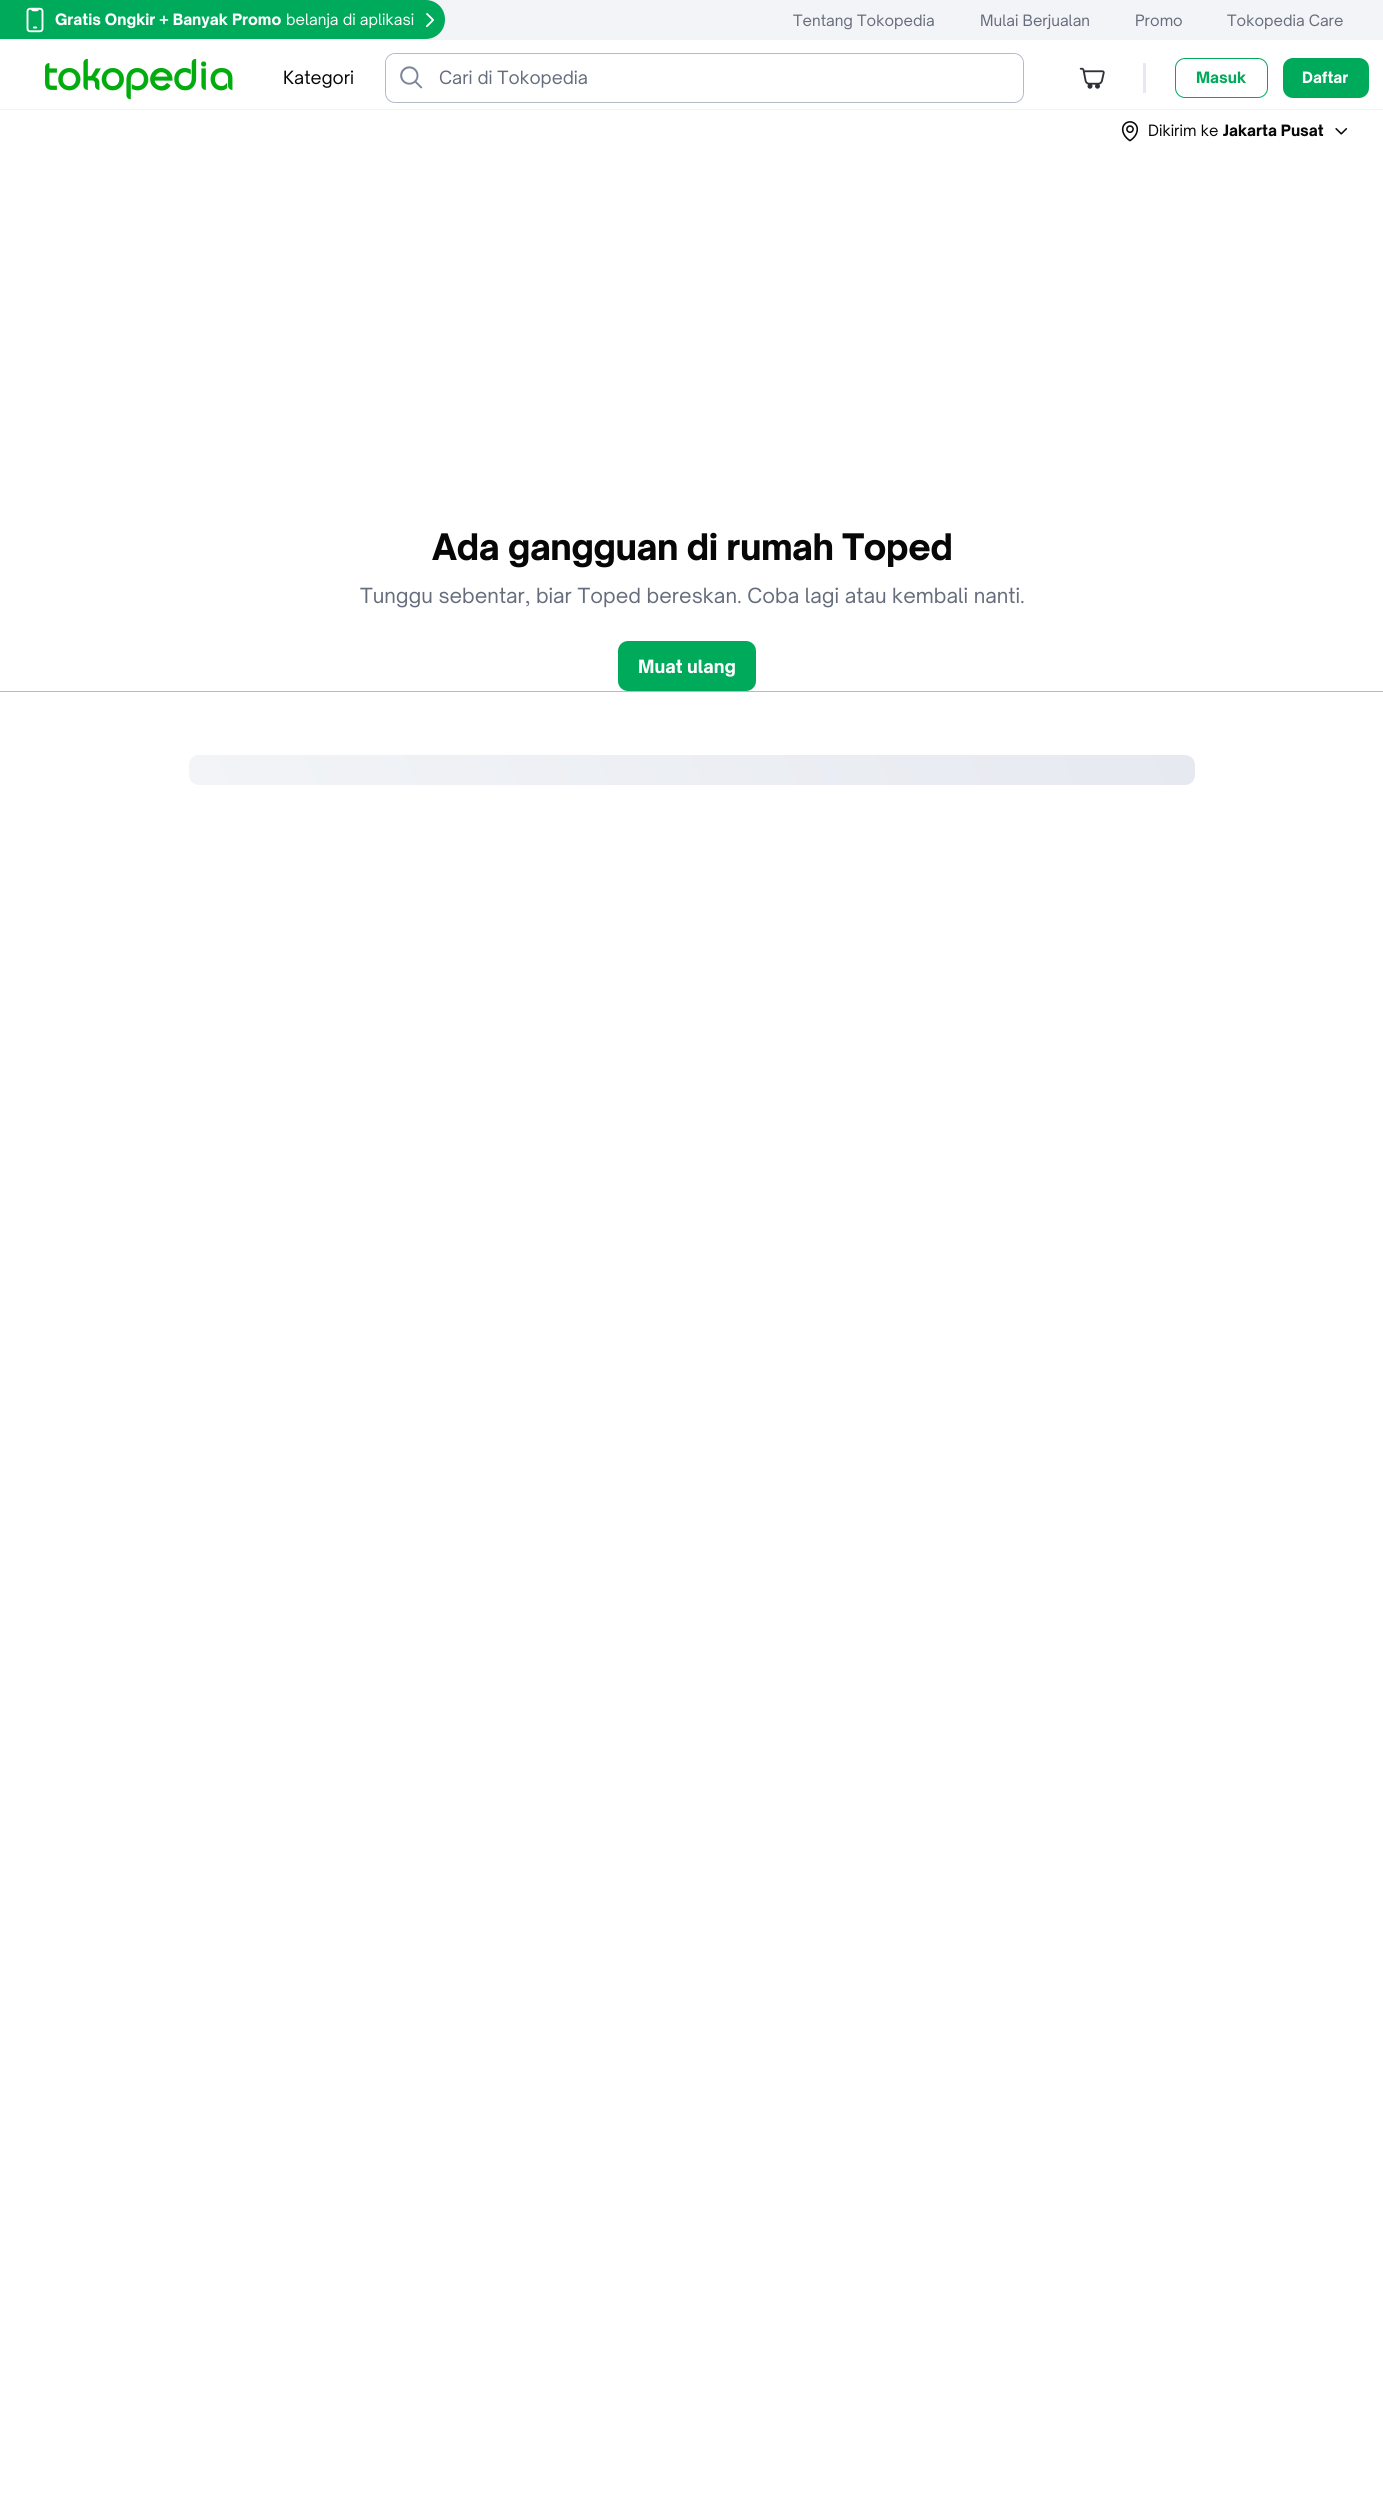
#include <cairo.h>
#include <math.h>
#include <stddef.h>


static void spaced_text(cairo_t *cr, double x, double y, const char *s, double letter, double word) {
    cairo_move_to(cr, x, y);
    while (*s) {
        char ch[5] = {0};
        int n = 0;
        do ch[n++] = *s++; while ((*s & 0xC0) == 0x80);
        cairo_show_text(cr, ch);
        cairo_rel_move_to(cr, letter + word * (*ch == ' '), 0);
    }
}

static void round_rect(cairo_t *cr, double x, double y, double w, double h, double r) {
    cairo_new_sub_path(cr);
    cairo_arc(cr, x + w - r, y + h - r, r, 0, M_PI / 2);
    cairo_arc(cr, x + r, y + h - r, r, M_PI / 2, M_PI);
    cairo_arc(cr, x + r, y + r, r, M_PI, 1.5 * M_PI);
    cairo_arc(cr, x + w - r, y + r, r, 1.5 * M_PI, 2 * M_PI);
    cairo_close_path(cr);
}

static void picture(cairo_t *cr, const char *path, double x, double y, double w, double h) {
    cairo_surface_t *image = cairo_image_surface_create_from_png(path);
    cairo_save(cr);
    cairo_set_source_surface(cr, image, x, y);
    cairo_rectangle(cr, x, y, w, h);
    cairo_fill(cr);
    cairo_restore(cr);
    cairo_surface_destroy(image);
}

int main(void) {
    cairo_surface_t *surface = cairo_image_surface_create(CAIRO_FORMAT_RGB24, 1383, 2516);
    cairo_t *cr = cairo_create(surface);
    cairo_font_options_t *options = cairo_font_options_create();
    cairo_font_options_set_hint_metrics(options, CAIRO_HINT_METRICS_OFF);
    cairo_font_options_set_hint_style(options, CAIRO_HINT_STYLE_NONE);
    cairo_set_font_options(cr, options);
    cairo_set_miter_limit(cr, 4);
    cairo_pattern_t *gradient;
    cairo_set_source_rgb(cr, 1, 1, 1);
    cairo_paint(cr);
    cairo_set_source_rgb(cr, 0.949, 0.957, 0.969);
    cairo_rectangle(cr, 0, 109, 1383, 1);
    cairo_fill(cr);
    cairo_rectangle(cr, 0, 0, 1383, 40);
    cairo_fill(cr);
    cairo_set_source_rgb(cr, 0, 0.667, 0.357);
    cairo_new_path(cr);
    cairo_move_to(cr, 0, 0);
    cairo_line_to(cr, 425.5, 0);
    cairo_curve_to(cr, 436.5, 0, 445, 8.5, 445, 19.5);
    cairo_curve_to(cr, 445, 30.5, 436.5, 39, 425.5, 39);
    cairo_line_to(cr, 0, 39);
    cairo_close_path(cr);
    cairo_fill(cr);
    picture(cr, "img1.png", 26, 7, 18, 26);
    cairo_select_font_face(cr, "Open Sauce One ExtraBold", CAIRO_FONT_SLANT_NORMAL, CAIRO_FONT_WEIGHT_NORMAL);
    cairo_set_font_size(cr, 15);
    cairo_set_source_rgb(cr, 1, 1, 1);
    cairo_move_to(cr, 55, 25);
    cairo_show_text(cr, "Gratis Ongkir + Banyak Promo");
    cairo_select_font_face(cr, "Open Sauce One", CAIRO_FONT_SLANT_NORMAL, CAIRO_FONT_WEIGHT_NORMAL);
    cairo_move_to(cr, 286, 25);
    cairo_show_text(cr, "belanja di aplikasi");
    picture(cr, "img2.png", 426, 13, 8, 15);
    cairo_set_source_rgb(cr, 0.396, 0.424, 0.482);
    cairo_move_to(cr, 793, 26);
    cairo_show_text(cr, "Tentang Tokopedia");
    cairo_move_to(cr, 980, 26);
    cairo_show_text(cr, "Mulai Berjualan");
    cairo_move_to(cr, 1135, 26);
    cairo_show_text(cr, "Promo");
    cairo_move_to(cr, 1227, 26);
    cairo_show_text(cr, "Tokopedia Care");
    picture(cr, "img3.png", 45, 59, 188, 41);
    cairo_set_font_size(cr, 17.5);
    cairo_set_source_rgb(cr, 0.031, 0.031, 0.031);
    cairo_move_to(cr, 283, 84);
    cairo_show_text(cr, "Kategori");
    round_rect(cr, 385.5, 53.5, 638, 49, 9.5);
    cairo_set_source_rgb(cr, 0.702, 0.733, 0.788);
    cairo_set_line_width(cr, 1);
    cairo_stroke(cr);
    cairo_set_source_rgb(cr, 1, 1, 1);
    round_rect(cr, 386, 54, 637, 47, 10);
    cairo_fill(cr);
    picture(cr, "img4.png", 400, 66, 23, 23);
    cairo_set_source_rgb(cr, 0.396, 0.424, 0.482);
    cairo_move_to(cr, 439, 84);
    cairo_show_text(cr, "Cari di Tokopedia");
    picture(cr, "img5.png", 1079, 67, 26, 22);
    cairo_set_source_rgb(cr, 0.902, 0.914, 0.941);
    cairo_rectangle(cr, 1143, 63, 3, 30);
    cairo_fill(cr);
    round_rect(cr, 1175.5, 58.5, 92, 39, 9.5);
    cairo_set_source_rgb(cr, 0, 0.667, 0.357);
    cairo_stroke(cr);
    cairo_select_font_face(cr, "Open Sauce One ExtraBold", CAIRO_FONT_SLANT_NORMAL, CAIRO_FONT_WEIGHT_NORMAL);
    cairo_set_font_size(cr, 15);
    cairo_move_to(cr, 1196, 83);
    cairo_show_text(cr, "Masuk");
    round_rect(cr, 1283, 58, 86, 40, 10);
    cairo_fill(cr);
    cairo_set_source_rgb(cr, 1, 1, 1);
    cairo_move_to(cr, 1302, 83);
    cairo_show_text(cr, "Daftar");
    picture(cr, "img6.png", 1121, 121, 18, 21);
    cairo_select_font_face(cr, "Open Sauce One", CAIRO_FONT_SLANT_NORMAL, CAIRO_FONT_WEIGHT_NORMAL);
    cairo_set_source_rgb(cr, 0.031, 0.031, 0.031);
    cairo_move_to(cr, 1148, 136);
    cairo_show_text(cr, "Dikirim ke");
    cairo_select_font_face(cr, "Open Sauce One ExtraBold", CAIRO_FONT_SLANT_NORMAL, CAIRO_FONT_WEIGHT_NORMAL);
    cairo_move_to(cr, 1223, 136);
    cairo_show_text(cr, "Jakarta Pusat");
    picture(cr, "img7.png", 1335, 128, 13, 7);
    cairo_set_font_size(cr, 35);
    spaced_text(cr, 432, 560, "Ada gangguan di rumah Toped", -0.5, 0);
    cairo_select_font_face(cr, "Open Sauce One", CAIRO_FONT_SLANT_NORMAL, CAIRO_FONT_WEIGHT_NORMAL);
    cairo_set_font_size(cr, 20);
    cairo_set_source_rgb(cr, 0.396, 0.424, 0.482);
    cairo_move_to(cr, 360, 603);
    cairo_show_text(cr, "Tunggu sebentar, biar Toped bereskan. Coba lagi atau kembali nanti.");
    cairo_set_source_rgb(cr, 0, 0.667, 0.357);
    round_rect(cr, 618, 641, 138, 50, 10);
    cairo_fill(cr);
    cairo_select_font_face(cr, "Open Sauce One ExtraBold", CAIRO_FONT_SLANT_NORMAL, CAIRO_FONT_WEIGHT_NORMAL);
    cairo_set_font_size(cr, 17.5);
    cairo_set_source_rgb(cr, 1, 1, 1);
    cairo_move_to(cr, 638, 673);
    cairo_show_text(cr, "Muat ulang");
    cairo_set_source_rgb(cr, 0.702, 0.733, 0.788);
    cairo_rectangle(cr, 0, 691, 1383, 1);
    cairo_fill(cr);
    gradient = cairo_pattern_create_linear(273, 965, 1111, 575);
    cairo_pattern_add_color_stop_rgba(gradient, 0, 0.949, 0.957, 0.969, 1);
    cairo_pattern_add_color_stop_rgba(gradient, 1, 0.902, 0.914, 0.941, 1);
    cairo_set_source(cr, gradient);
    cairo_pattern_destroy(gradient);
    round_rect(cr, 189, 755, 1006, 30, 10);
    cairo_fill(cr);
    cairo_surface_write_to_png(surface, "page.png");
    cairo_font_options_destroy(options);
    cairo_destroy(cr);
    cairo_surface_destroy(surface);
    return 0;
}
